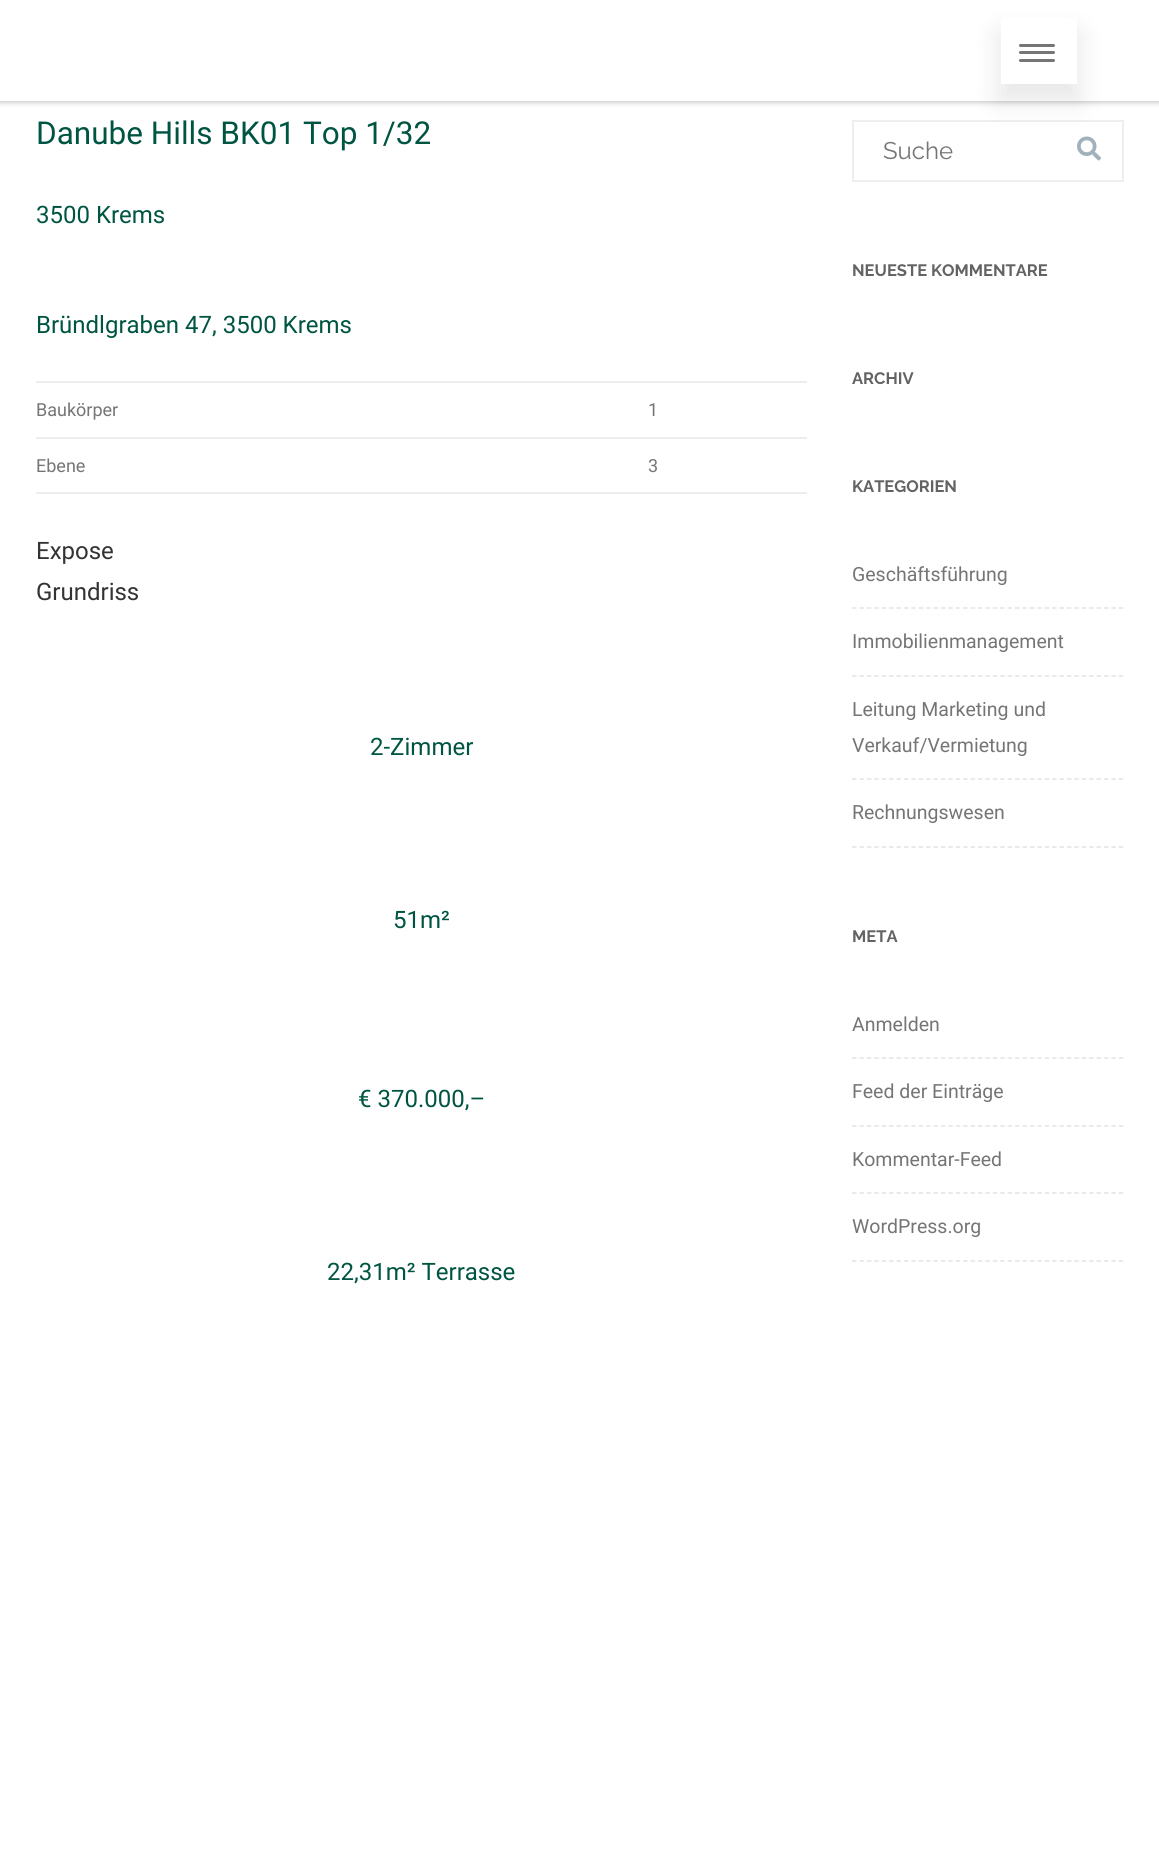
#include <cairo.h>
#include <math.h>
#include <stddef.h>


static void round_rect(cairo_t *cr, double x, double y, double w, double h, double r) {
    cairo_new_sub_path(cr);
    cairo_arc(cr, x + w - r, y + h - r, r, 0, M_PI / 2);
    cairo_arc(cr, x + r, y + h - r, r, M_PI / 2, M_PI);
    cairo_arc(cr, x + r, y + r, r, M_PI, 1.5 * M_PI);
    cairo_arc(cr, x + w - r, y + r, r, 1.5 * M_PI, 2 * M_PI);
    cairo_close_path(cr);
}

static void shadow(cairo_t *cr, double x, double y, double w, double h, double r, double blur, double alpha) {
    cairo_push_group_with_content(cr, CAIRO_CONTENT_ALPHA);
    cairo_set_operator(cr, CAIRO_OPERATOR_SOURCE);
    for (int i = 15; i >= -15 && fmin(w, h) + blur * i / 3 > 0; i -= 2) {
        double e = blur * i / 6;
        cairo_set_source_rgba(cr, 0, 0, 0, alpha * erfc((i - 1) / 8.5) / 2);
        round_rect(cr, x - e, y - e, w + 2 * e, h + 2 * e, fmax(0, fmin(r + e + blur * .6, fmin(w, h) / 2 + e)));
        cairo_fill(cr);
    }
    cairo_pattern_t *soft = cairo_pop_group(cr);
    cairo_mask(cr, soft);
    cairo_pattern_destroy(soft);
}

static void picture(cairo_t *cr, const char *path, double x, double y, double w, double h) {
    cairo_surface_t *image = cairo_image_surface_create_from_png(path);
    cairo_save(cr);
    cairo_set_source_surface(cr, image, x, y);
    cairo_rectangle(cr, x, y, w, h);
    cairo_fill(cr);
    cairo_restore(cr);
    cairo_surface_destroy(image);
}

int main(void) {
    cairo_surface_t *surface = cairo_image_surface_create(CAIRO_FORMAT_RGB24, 1159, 1849);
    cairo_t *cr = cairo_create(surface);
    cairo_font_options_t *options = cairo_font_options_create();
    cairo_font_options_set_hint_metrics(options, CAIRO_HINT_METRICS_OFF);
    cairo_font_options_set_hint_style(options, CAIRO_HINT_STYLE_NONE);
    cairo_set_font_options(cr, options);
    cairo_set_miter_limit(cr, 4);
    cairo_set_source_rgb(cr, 1, 1, 1);
    cairo_paint(cr);
    cairo_save(cr);
    cairo_set_fill_rule(cr, CAIRO_FILL_RULE_EVEN_ODD);
    cairo_new_path(cr);
    cairo_move_to(cr, 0, 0);
    cairo_line_to(cr, 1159, 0);
    cairo_line_to(cr, 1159, 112);
    cairo_line_to(cr, 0, 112);
    cairo_close_path(cr);
    cairo_move_to(cr, 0, 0);
    cairo_line_to(cr, 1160, 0);
    cairo_line_to(cr, 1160, 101);
    cairo_line_to(cr, 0, 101);
    cairo_close_path(cr);
    cairo_clip(cr);
    cairo_set_source_rgb(cr, 0.655, 0.663, 0.643);
    shadow(cr, 0, 2, 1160, 100, 0, 3, 0.75);
    cairo_restore(cr);
    cairo_rectangle(cr, 853, 121, 270, 60);
    cairo_set_source_rgb(cr, 0.925, 0.933, 0.941);
    cairo_stroke(cr);
    picture(cr, "img1.png", 1077, 136, 24, 25);
    cairo_save(cr);
    cairo_set_fill_rule(cr, CAIRO_FILL_RULE_EVEN_ODD);
    cairo_new_path(cr);
    cairo_move_to(cr, 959, 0);
    cairo_line_to(cr, 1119, 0);
    cairo_line_to(cr, 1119, 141);
    cairo_line_to(cr, 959, 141);
    cairo_close_path(cr);
    cairo_move_to(cr, 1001, 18);
    cairo_line_to(cr, 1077, 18);
    cairo_line_to(cr, 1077, 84);
    cairo_line_to(cr, 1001, 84);
    cairo_close_path(cr);
    cairo_clip(cr);
    cairo_set_source_rgb(cr, 0.251, 0.251, 0.251);
    shadow(cr, 999, 33, 80, 68, 0, 13, 0.13);
    cairo_restore(cr);
    cairo_set_source_rgb(cr, 0.459, 0.459, 0.459);
    round_rect(cr, 1019, 44, 36, 3, 1.5);
    cairo_fill(cr);
    round_rect(cr, 1019, 51, 36, 3, 1.5);
    cairo_fill(cr);
    round_rect(cr, 1019, 59, 36, 3, 1.5);
    cairo_fill(cr);
    cairo_select_font_face(cr, "Roboto", CAIRO_FONT_SLANT_NORMAL, CAIRO_FONT_WEIGHT_NORMAL);
    cairo_set_font_size(cr, 31.5);
    cairo_set_source_rgb(cr, 0, 0.333, 0.259);
    cairo_move_to(cr, 36, 144);
    cairo_show_text(cr, "Danube Hills BK01 Top 1/32");
    cairo_set_font_size(cr, 24);
    cairo_move_to(cr, 36, 223);
    cairo_show_text(cr, "3500 Krems");
    cairo_move_to(cr, 36, 333);
    cairo_show_text(cr, "Bründlgraben 47, 3500 Krems");
    cairo_set_source_rgb(cr, 0.929, 0.929, 0.929);
    cairo_rectangle(cr, 36, 492, 771, 2);
    cairo_fill(cr);
    cairo_set_font_size(cr, 18);
    cairo_set_source_rgb(cr, 0.459, 0.459, 0.459);
    cairo_move_to(cr, 36, 416);
    cairo_show_text(cr, "Baukörper");
    cairo_set_source_rgb(cr, 0.929, 0.929, 0.929);
    cairo_rectangle(cr, 36, 381, 771, 2);
    cairo_fill(cr);
    cairo_set_source_rgb(cr, 0.459, 0.459, 0.459);
    cairo_move_to(cr, 648, 416);
    cairo_show_text(cr, "1");
    cairo_move_to(cr, 36, 472);
    cairo_show_text(cr, "Ebene");
    cairo_set_source_rgb(cr, 0.929, 0.929, 0.929);
    cairo_rectangle(cr, 36, 437, 771, 2);
    cairo_fill(cr);
    cairo_set_source_rgb(cr, 0.459, 0.459, 0.459);
    cairo_move_to(cr, 648, 472);
    cairo_show_text(cr, "3");
    cairo_set_font_size(cr, 24);
    cairo_set_source_rgb(cr, 0.2, 0.2, 0.2);
    cairo_move_to(cr, 36, 559);
    cairo_show_text(cr, "Expose");
    cairo_move_to(cr, 36, 600);
    cairo_show_text(cr, "Grundriss");
    cairo_set_source_rgb(cr, 0, 0.333, 0.259);
    cairo_move_to(cr, 370, 755);
    cairo_show_text(cr, "2-Zimmer");
    cairo_move_to(cr, 393, 928);
    cairo_show_text(cr, "51m²");
    cairo_move_to(cr, 358, 1107);
    cairo_show_text(cr, "€ 370.000,–");
    cairo_move_to(cr, 327, 1280);
    cairo_show_text(cr, "22,31m² Terrasse");
    cairo_select_font_face(cr, "Raleway", CAIRO_FONT_SLANT_NORMAL, CAIRO_FONT_WEIGHT_NORMAL);
    cairo_set_source_rgb(cr, 0.459, 0.459, 0.459);
    cairo_move_to(cr, 883, 159);
    cairo_show_text(cr, "Suche");
    cairo_select_font_face(cr, "Raleway", CAIRO_FONT_SLANT_NORMAL, CAIRO_FONT_WEIGHT_BOLD);
    cairo_set_font_size(cr, 16.5);
    cairo_set_source_rgb(cr, 0.388, 0.388, 0.388);
    cairo_move_to(cr, 852, 276);
    cairo_show_text(cr, "NEUESTE KOMMENTARE");
    cairo_move_to(cr, 852, 384);
    cairo_show_text(cr, "ARCHIV");
    cairo_move_to(cr, 852, 492);
    cairo_show_text(cr, "KATEGORIEN");
    cairo_new_path(cr);
    cairo_move_to(cr, 852, 608);
    cairo_line_to(cr, 1123.5, 608);
    cairo_set_source_rgb(cr, 0.89, 0.89, 0.89);
    cairo_set_line_width(cr, 1.5);
    cairo_set_dash(cr, (double[]){4.5, 2.91}, 2, 0);
    cairo_stroke(cr);
    cairo_select_font_face(cr, "Roboto", CAIRO_FONT_SLANT_NORMAL, CAIRO_FONT_WEIGHT_NORMAL);
    cairo_set_font_size(cr, 19.5);
    cairo_set_source_rgb(cr, 0.459, 0.459, 0.459);
    cairo_move_to(cr, 852, 581);
    cairo_show_text(cr, "Geschäftsführung");
    cairo_new_path(cr);
    cairo_move_to(cr, 852, 676);
    cairo_line_to(cr, 1123.5, 676);
    cairo_set_source_rgb(cr, 0.89, 0.89, 0.89);
    cairo_stroke(cr);
    cairo_set_source_rgb(cr, 0.459, 0.459, 0.459);
    cairo_move_to(cr, 852, 648);
    cairo_show_text(cr, "Immobilienmanagement");
    cairo_new_path(cr);
    cairo_move_to(cr, 852, 779);
    cairo_line_to(cr, 1123.5, 779);
    cairo_set_source_rgb(cr, 0.89, 0.89, 0.89);
    cairo_stroke(cr);
    cairo_set_source_rgb(cr, 0.459, 0.459, 0.459);
    cairo_move_to(cr, 852, 716);
    cairo_show_text(cr, "Leitung Marketing und");
    cairo_move_to(cr, 852, 752);
    cairo_show_text(cr, "Verkauf/Vermietung");
    cairo_new_path(cr);
    cairo_move_to(cr, 852, 847);
    cairo_line_to(cr, 1123.5, 847);
    cairo_set_source_rgb(cr, 0.89, 0.89, 0.89);
    cairo_stroke(cr);
    cairo_set_source_rgb(cr, 0.459, 0.459, 0.459);
    cairo_move_to(cr, 852, 819);
    cairo_show_text(cr, "Rechnungswesen");
    cairo_select_font_face(cr, "Raleway", CAIRO_FONT_SLANT_NORMAL, CAIRO_FONT_WEIGHT_BOLD);
    cairo_set_font_size(cr, 16.5);
    cairo_set_source_rgb(cr, 0.388, 0.388, 0.388);
    cairo_move_to(cr, 852, 942);
    cairo_show_text(cr, "META");
    cairo_new_path(cr);
    cairo_move_to(cr, 852, 1058);
    cairo_line_to(cr, 1123.5, 1058);
    cairo_set_source_rgb(cr, 0.89, 0.89, 0.89);
    cairo_stroke(cr);
    cairo_select_font_face(cr, "Roboto", CAIRO_FONT_SLANT_NORMAL, CAIRO_FONT_WEIGHT_NORMAL);
    cairo_set_font_size(cr, 19.5);
    cairo_set_source_rgb(cr, 0.459, 0.459, 0.459);
    cairo_move_to(cr, 852, 1031);
    cairo_show_text(cr, "Anmelden");
    cairo_new_path(cr);
    cairo_move_to(cr, 852, 1126);
    cairo_line_to(cr, 1123.5, 1126);
    cairo_set_source_rgb(cr, 0.89, 0.89, 0.89);
    cairo_stroke(cr);
    cairo_set_source_rgb(cr, 0.459, 0.459, 0.459);
    cairo_move_to(cr, 852, 1098);
    cairo_show_text(cr, "Feed der Einträge");
    cairo_new_path(cr);
    cairo_move_to(cr, 852, 1193);
    cairo_line_to(cr, 1123.5, 1193);
    cairo_set_source_rgb(cr, 0.89, 0.89, 0.89);
    cairo_stroke(cr);
    cairo_set_source_rgb(cr, 0.459, 0.459, 0.459);
    cairo_move_to(cr, 852, 1166);
    cairo_show_text(cr, "Kommentar-Feed");
    cairo_new_path(cr);
    cairo_move_to(cr, 852, 1261);
    cairo_line_to(cr, 1123.5, 1261);
    cairo_set_source_rgb(cr, 0.89, 0.89, 0.89);
    cairo_stroke(cr);
    cairo_set_source_rgb(cr, 0.459, 0.459, 0.459);
    cairo_move_to(cr, 852, 1233);
    cairo_show_text(cr, "WordPress.org");
    cairo_surface_write_to_png(surface, "page.png");
    cairo_font_options_destroy(options);
    cairo_destroy(cr);
    cairo_surface_destroy(surface);
    return 0;
}
